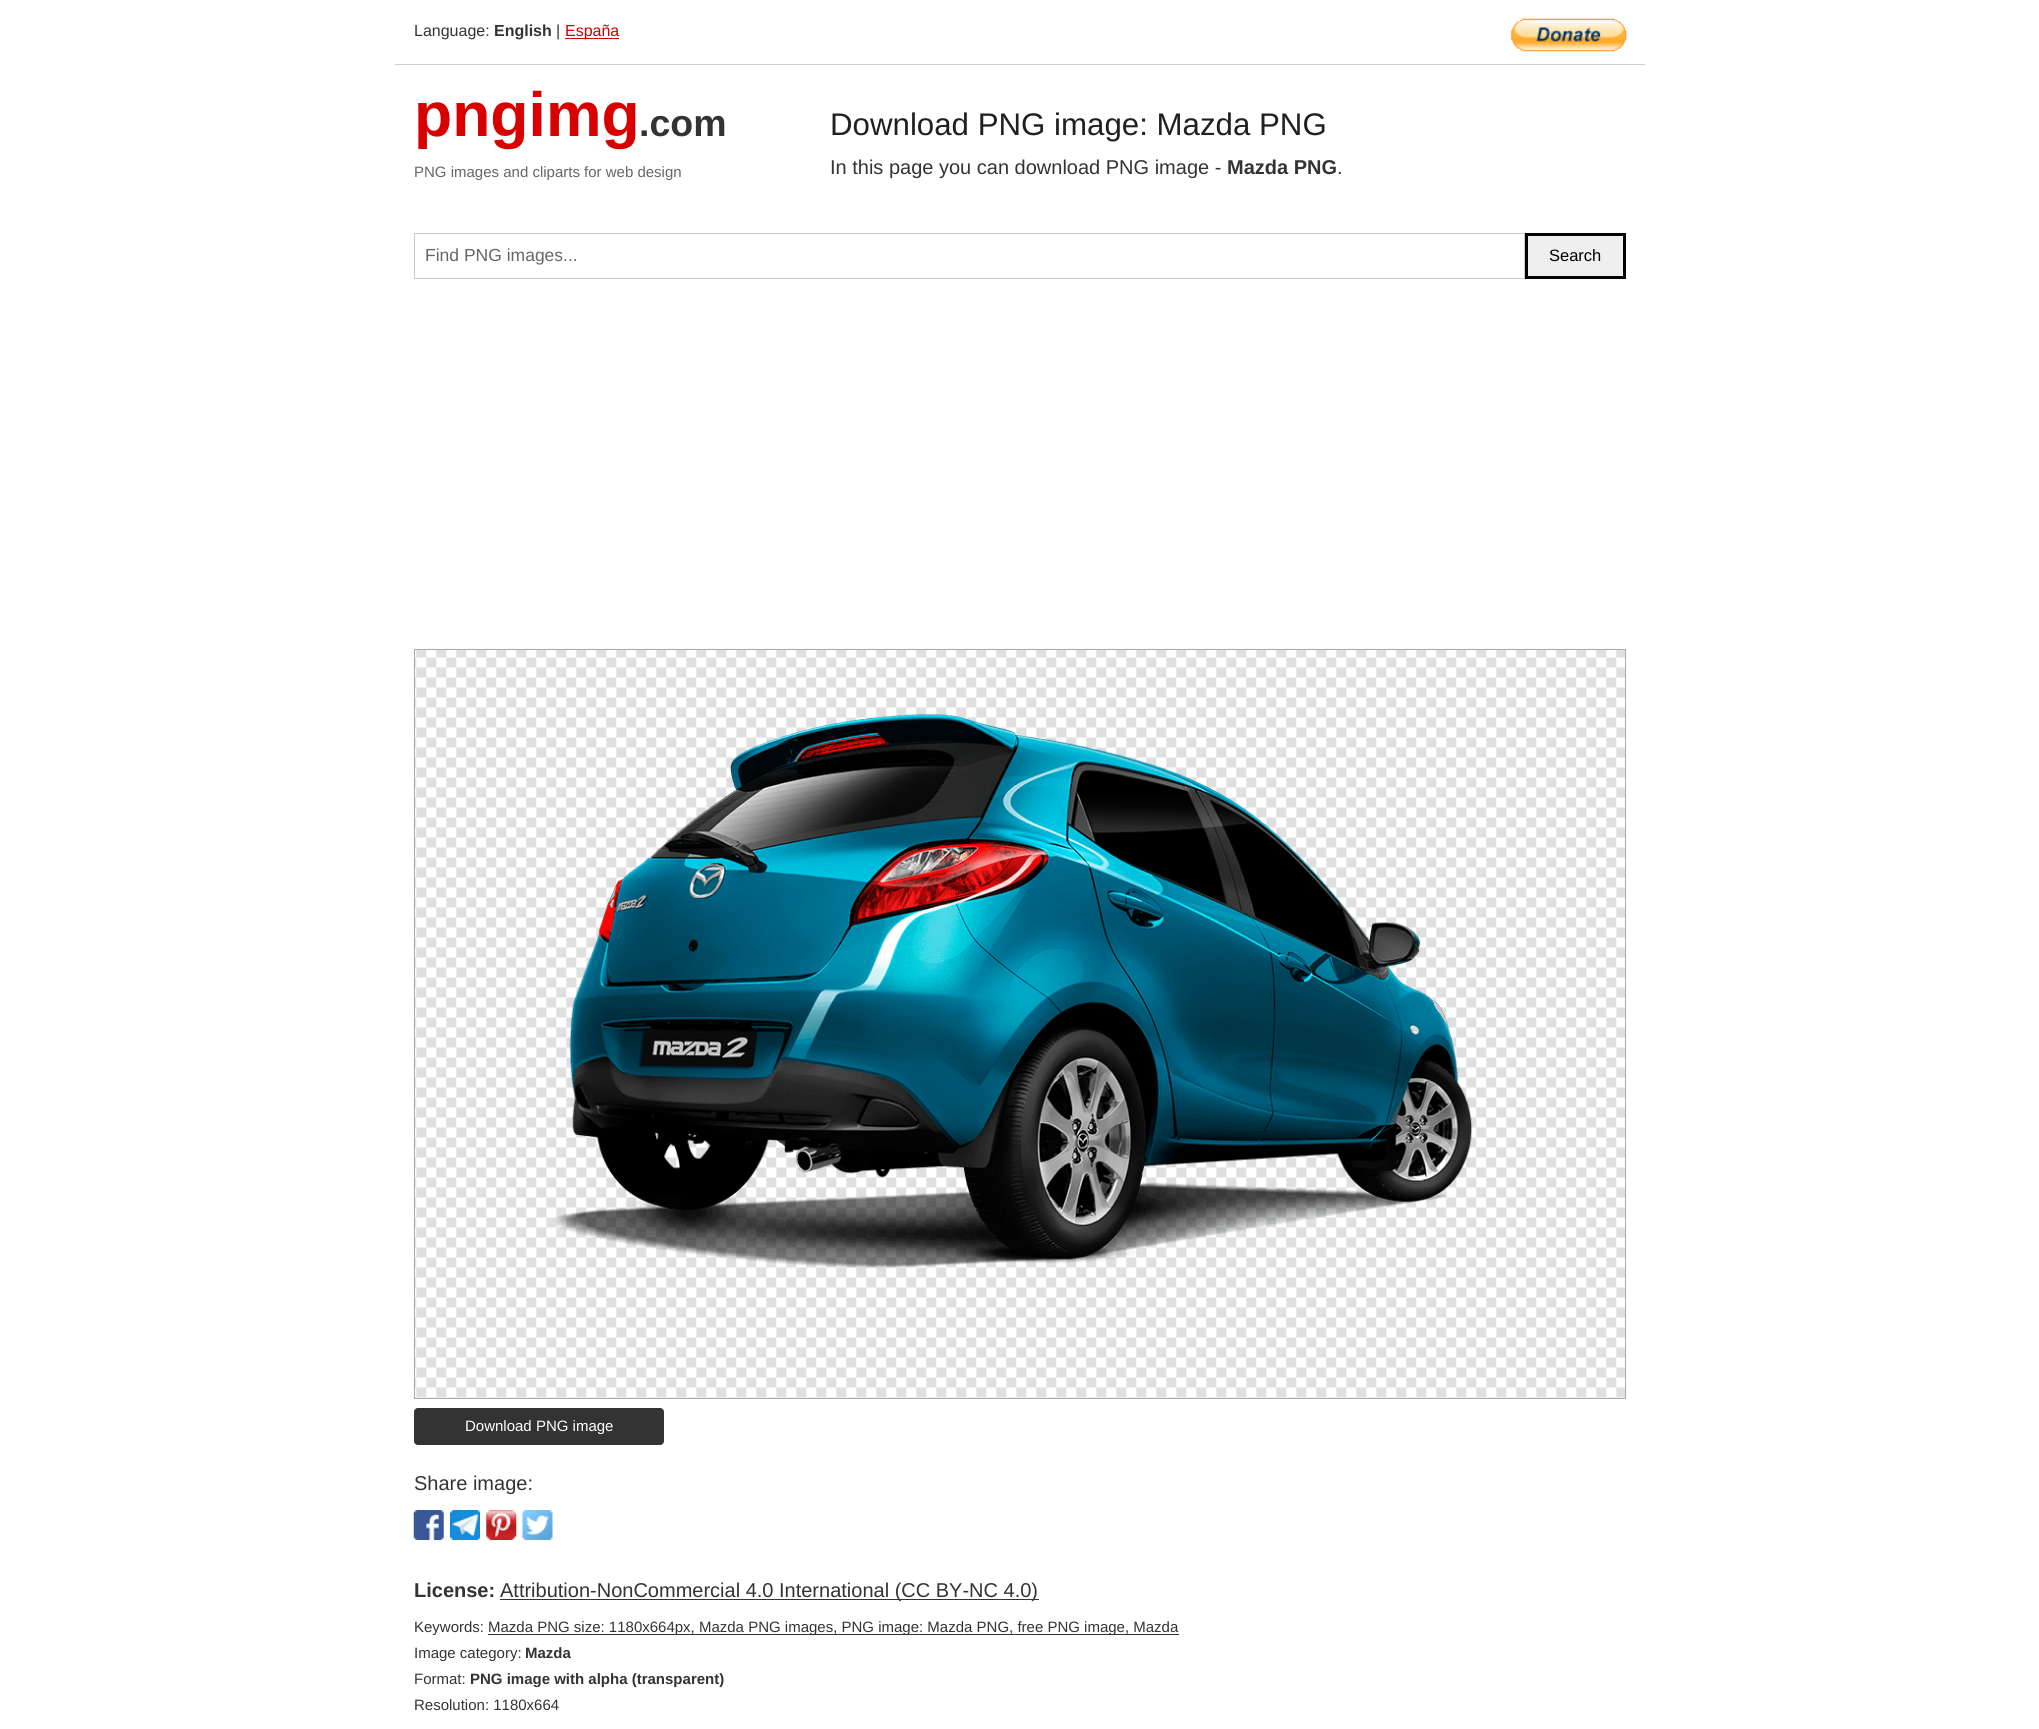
#include <cairo.h>
#include <math.h>
#include <stddef.h>


static void round_rect(cairo_t *cr, double x, double y, double w, double h, double r) {
    cairo_new_sub_path(cr);
    cairo_arc(cr, x + w - r, y + h - r, r, 0, M_PI / 2);
    cairo_arc(cr, x + r, y + h - r, r, M_PI / 2, M_PI);
    cairo_arc(cr, x + r, y + r, r, M_PI, 1.5 * M_PI);
    cairo_arc(cr, x + w - r, y + r, r, 1.5 * M_PI, 2 * M_PI);
    cairo_close_path(cr);
}

static void picture(cairo_t *cr, const char *path, double x, double y, double w, double h) {
    cairo_surface_t *image = cairo_image_surface_create_from_png(path);
    cairo_save(cr);
    cairo_set_source_surface(cr, image, x, y);
    cairo_rectangle(cr, x, y, w, h);
    cairo_fill(cr);
    cairo_restore(cr);
    cairo_surface_destroy(image);
}

int main(void) {
    cairo_surface_t *surface = cairo_image_surface_create(CAIRO_FORMAT_RGB24, 2039, 1729);
    cairo_t *cr = cairo_create(surface);
    cairo_font_options_t *options = cairo_font_options_create();
    cairo_font_options_set_hint_metrics(options, CAIRO_HINT_METRICS_OFF);
    cairo_font_options_set_hint_style(options, CAIRO_HINT_STYLE_NONE);
    cairo_set_font_options(cr, options);
    cairo_set_miter_limit(cr, 4);
    cairo_set_source_rgb(cr, 1, 1, 1);
    cairo_paint(cr);
    cairo_set_source_rgb(cr, 0.8, 0.8, 0.8);
    cairo_rectangle(cr, 395, 64, 1250, 1);
    cairo_fill(cr);
    cairo_select_font_face(cr, "Liberation Sans", CAIRO_FONT_SLANT_NORMAL, CAIRO_FONT_WEIGHT_NORMAL);
    cairo_set_font_size(cr, 16);
    cairo_set_source_rgb(cr, 0.2, 0.2, 0.2);
    cairo_move_to(cr, 414, 36);
    cairo_show_text(cr, "Language:");
    cairo_select_font_face(cr, "Liberation Sans", CAIRO_FONT_SLANT_NORMAL, CAIRO_FONT_WEIGHT_BOLD);
    cairo_move_to(cr, 494, 36);
    cairo_show_text(cr, "English");
    cairo_select_font_face(cr, "Liberation Sans", CAIRO_FONT_SLANT_NORMAL, CAIRO_FONT_WEIGHT_NORMAL);
    cairo_move_to(cr, 556, 36);
    cairo_show_text(cr, "|");
    cairo_set_source_rgb(cr, 0.8, 0, 0);
    cairo_rectangle(cr, 565, 38, 54, 1);
    cairo_fill(cr);
    cairo_move_to(cr, 565, 36);
    cairo_show_text(cr, "España");
    picture(cr, "img1.png", 1511, 18, 116, 34);
    cairo_select_font_face(cr, "Liberation Sans", CAIRO_FONT_SLANT_NORMAL, CAIRO_FONT_WEIGHT_BOLD);
    cairo_set_font_size(cr, 62.5);
    cairo_set_source_rgb(cr, 0.851, 0, 0);
    cairo_move_to(cr, 414, 136);
    cairo_show_text(cr, "pngimg");
    cairo_set_font_size(cr, 37.5);
    cairo_set_source_rgb(cr, 0.2, 0.2, 0.2);
    cairo_move_to(cr, 639, 136);
    cairo_show_text(cr, ".com");
    cairo_select_font_face(cr, "Liberation Sans", CAIRO_FONT_SLANT_NORMAL, CAIRO_FONT_WEIGHT_NORMAL);
    cairo_set_font_size(cr, 15);
    cairo_set_source_rgb(cr, 0.4, 0.4, 0.4);
    cairo_move_to(cr, 414, 177);
    cairo_show_text(cr, "PNG images and cliparts for web design");
    cairo_set_font_size(cr, 31.25);
    cairo_set_source_rgb(cr, 0.137, 0.122, 0.122);
    cairo_move_to(cr, 830, 135);
    cairo_show_text(cr, "Download PNG image: Mazda PNG");
    cairo_set_font_size(cr, 20);
    cairo_set_source_rgb(cr, 0.2, 0.2, 0.2);
    cairo_move_to(cr, 830, 174);
    cairo_show_text(cr, "In this page you can download PNG image -");
    cairo_select_font_face(cr, "Liberation Sans", CAIRO_FONT_SLANT_NORMAL, CAIRO_FONT_WEIGHT_BOLD);
    cairo_move_to(cr, 1227, 174);
    cairo_show_text(cr, "Mazda PNG");
    cairo_select_font_face(cr, "Liberation Sans", CAIRO_FONT_SLANT_NORMAL, CAIRO_FONT_WEIGHT_NORMAL);
    cairo_move_to(cr, 1337, 174);
    cairo_show_text(cr, ".");
    cairo_rectangle(cr, 414.5, 233.5, 1110, 45);
    cairo_set_source_rgb(cr, 0.8, 0.8, 0.8);
    cairo_set_line_width(cr, 1);
    cairo_stroke(cr);
    cairo_set_font_size(cr, 17.5);
    cairo_set_source_rgb(cr, 0.4, 0.4, 0.4);
    cairo_move_to(cr, 425, 261);
    cairo_show_text(cr, "Find PNG images...");
    cairo_set_source_rgb(cr, 0.937, 0.937, 0.937);
    cairo_rectangle(cr, 1526.5, 234.5, 98, 43);
    cairo_fill_preserve(cr);
    cairo_set_source_rgb(cr, 0, 0, 0);
    cairo_set_line_width(cr, 3);
    cairo_stroke(cr);
    cairo_set_font_size(cr, 16.5);
    cairo_move_to(cr, 1549, 261);
    cairo_show_text(cr, "Search");
    picture(cr, "img2.png", 413, 648, 1214, 751);
    cairo_rectangle(cr, 414.5, 649.5, 1211, 749);
    cairo_set_source_rgb(cr, 0.667, 0.667, 0.667);
    cairo_set_line_width(cr, 1);
    cairo_stroke(cr);
    picture(cr, "img3.png", 556, 714, 917, 555);
    cairo_set_source_rgb(cr, 0.2, 0.2, 0.2);
    round_rect(cr, 414, 1408, 250, 37, 4);
    cairo_fill(cr);
    cairo_set_font_size(cr, 15);
    cairo_set_source_rgb(cr, 1, 1, 1);
    cairo_move_to(cr, 465, 1431);
    cairo_show_text(cr, "Download PNG image");
    cairo_set_font_size(cr, 20);
    cairo_set_source_rgb(cr, 0.2, 0.2, 0.2);
    cairo_move_to(cr, 414, 1490);
    cairo_show_text(cr, "Share image:");
    picture(cr, "img4.png", 413, 1510, 31, 30);
    picture(cr, "img5.png", 450, 1510, 30, 30);
    picture(cr, "img6.png", 486, 1510, 31, 30);
    picture(cr, "img7.png", 522, 1510, 31, 30);
    cairo_select_font_face(cr, "Liberation Sans", CAIRO_FONT_SLANT_NORMAL, CAIRO_FONT_WEIGHT_BOLD);
    cairo_move_to(cr, 414, 1597);
    cairo_show_text(cr, "License:");
    cairo_rectangle(cr, 500, 1599, 539, 1);
    cairo_fill(cr);
    cairo_select_font_face(cr, "Liberation Sans", CAIRO_FONT_SLANT_NORMAL, CAIRO_FONT_WEIGHT_NORMAL);
    cairo_move_to(cr, 500, 1597);
    cairo_show_text(cr, "Attribution-NonCommercial 4.0 International (CC BY-NC 4.0)");
    cairo_set_font_size(cr, 15);
    cairo_move_to(cr, 414, 1632);
    cairo_show_text(cr, "Keywords:");
    cairo_rectangle(cr, 488, 1634, 691, 1);
    cairo_fill(cr);
    cairo_move_to(cr, 488, 1632);
    cairo_show_text(cr, "Mazda PNG size: 1180x664px, Mazda PNG images, PNG image: Mazda PNG, free PNG image, Mazda");
    cairo_move_to(cr, 414, 1658);
    cairo_show_text(cr, "Image category:");
    cairo_select_font_face(cr, "Liberation Sans", CAIRO_FONT_SLANT_NORMAL, CAIRO_FONT_WEIGHT_BOLD);
    cairo_move_to(cr, 525, 1658);
    cairo_show_text(cr, "Mazda");
    cairo_select_font_face(cr, "Liberation Sans", CAIRO_FONT_SLANT_NORMAL, CAIRO_FONT_WEIGHT_NORMAL);
    cairo_move_to(cr, 414, 1684);
    cairo_show_text(cr, "Format:");
    cairo_select_font_face(cr, "Liberation Sans", CAIRO_FONT_SLANT_NORMAL, CAIRO_FONT_WEIGHT_BOLD);
    cairo_move_to(cr, 470, 1684);
    cairo_show_text(cr, "PNG image with alpha (transparent)");
    cairo_select_font_face(cr, "Liberation Sans", CAIRO_FONT_SLANT_NORMAL, CAIRO_FONT_WEIGHT_NORMAL);
    cairo_move_to(cr, 414, 1710);
    cairo_show_text(cr, "Resolution: 1180x664");
    cairo_surface_write_to_png(surface, "page.png");
    cairo_font_options_destroy(options);
    cairo_destroy(cr);
    cairo_surface_destroy(surface);
    return 0;
}
